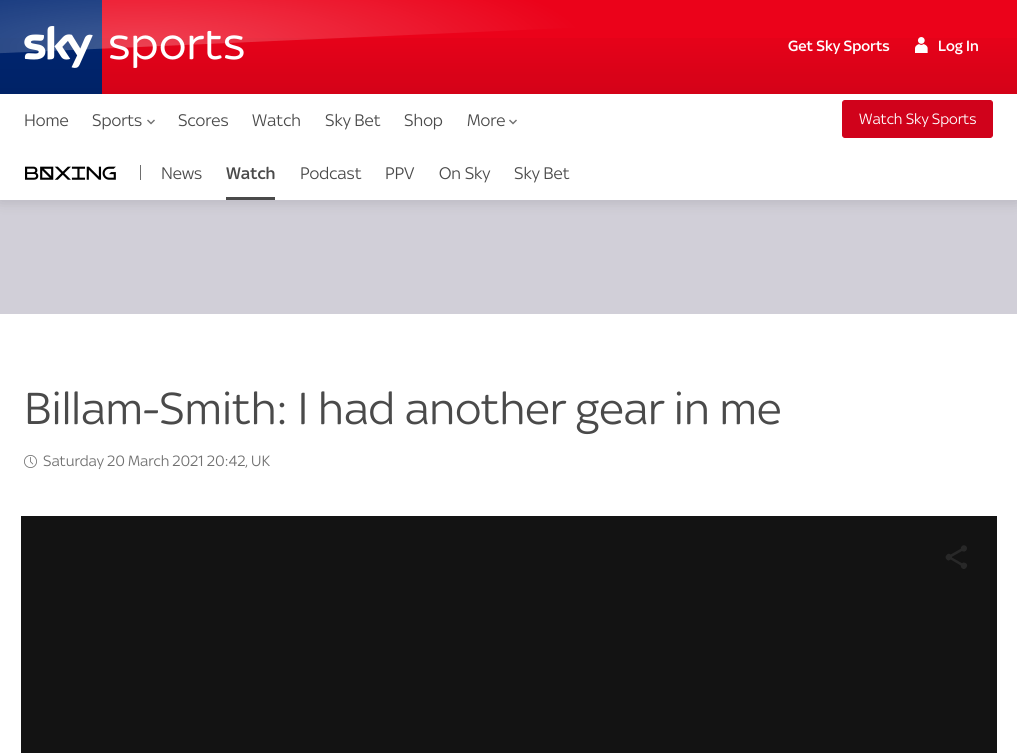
#include <cairo.h>
#include <math.h>
#include <stddef.h>


static void round_rect(cairo_t *cr, double x, double y, double w, double h, double r) {
    cairo_new_sub_path(cr);
    cairo_arc(cr, x + w - r, y + h - r, r, 0, M_PI / 2);
    cairo_arc(cr, x + r, y + h - r, r, M_PI / 2, M_PI);
    cairo_arc(cr, x + r, y + r, r, M_PI, 1.5 * M_PI);
    cairo_arc(cr, x + w - r, y + r, r, 1.5 * M_PI, 2 * M_PI);
    cairo_close_path(cr);
}

static void shadow(cairo_t *cr, double x, double y, double w, double h, double r, double blur, double alpha) {
    cairo_push_group_with_content(cr, CAIRO_CONTENT_ALPHA);
    cairo_set_operator(cr, CAIRO_OPERATOR_SOURCE);
    for (int i = 15; i >= -15 && fmin(w, h) + blur * i / 3 > 0; i -= 2) {
        double e = blur * i / 6;
        cairo_set_source_rgba(cr, 0, 0, 0, alpha * erfc((i - 1) / 8.5) / 2);
        round_rect(cr, x - e, y - e, w + 2 * e, h + 2 * e, fmax(0, fmin(r + e + blur * .6, fmin(w, h) / 2 + e)));
        cairo_fill(cr);
    }
    cairo_pattern_t *soft = cairo_pop_group(cr);
    cairo_mask(cr, soft);
    cairo_pattern_destroy(soft);
}

static void picture(cairo_t *cr, const char *path, double x, double y, double w, double h) {
    cairo_surface_t *image = cairo_image_surface_create_from_png(path);
    cairo_save(cr);
    cairo_set_source_surface(cr, image, x, y);
    cairo_rectangle(cr, x, y, w, h);
    cairo_fill(cr);
    cairo_restore(cr);
    cairo_surface_destroy(image);
}

int main(void) {
    cairo_surface_t *surface = cairo_image_surface_create(CAIRO_FORMAT_RGB24, 1017, 753);
    cairo_t *cr = cairo_create(surface);
    cairo_font_options_t *options = cairo_font_options_create();
    cairo_font_options_set_hint_metrics(options, CAIRO_HINT_METRICS_OFF);
    cairo_font_options_set_hint_style(options, CAIRO_HINT_STYLE_NONE);
    cairo_set_font_options(cr, options);
    cairo_set_miter_limit(cr, 4);
    cairo_pattern_t *gradient;
    cairo_set_source_rgb(cr, 1, 1, 1);
    cairo_paint(cr);
    cairo_set_source_rgb(cr, 0.82, 0.812, 0.847);
    cairo_rectangle(cr, 0, 200, 1017, 114);
    cairo_fill(cr);
    cairo_set_source_rgb(cr, 0, 0, 0);
    shadow(cr, 0, 1, 1017, 200, 0, 7.5, 0.14);
    cairo_set_source_rgb(cr, 0, 0.149, 0.447);
    cairo_rectangle(cr, 0, 0, 24, 94);
    cairo_fill(cr);
    cairo_set_source_rgb(cr, 0.918, 0.008, 0.102);
    cairo_rectangle(cr, 993, 0, 24, 94);
    cairo_fill(cr);
    gradient = cairo_pattern_create_linear(509, 94, 509, 0);
    cairo_pattern_add_color_stop_rgba(gradient, 0, 0, 0, 0, 0.1);
    cairo_pattern_add_color_stop_rgba(gradient, 0.76, 0, 0, 0, 0);
    cairo_set_source(cr, gradient);
    cairo_pattern_destroy(gradient);
    cairo_rectangle(cr, 0, 38, 1017, 56);
    cairo_fill(cr);
    cairo_set_source_rgb(cr, 0, 0.149, 0.447);
    cairo_rectangle(cr, 24, 0, 78, 94);
    cairo_fill(cr);
    cairo_set_source_rgb(cr, 0.918, 0.008, 0.102);
    cairo_rectangle(cr, 102, 0, 891, 94);
    cairo_fill(cr);
    gradient = cairo_pattern_create_linear(509, 94, 509, 0);
    cairo_pattern_add_color_stop_rgba(gradient, 0, 0, 0, 0, 0.1);
    cairo_pattern_add_color_stop_rgba(gradient, 0.76, 0, 0, 0, 0);
    cairo_set_source(cr, gradient);
    cairo_pattern_destroy(gradient);
    cairo_rectangle(cr, 24, 38, 969, 56);
    cairo_fill(cr);
    gradient = cairo_pattern_create_radial(0, 0, 0, 0, 0, 1);
    cairo_pattern_set_matrix(gradient, &(cairo_matrix_t){1.0 / 450, 0, 0, 1.0 / 100, -1.0 * 138 / 450, -1.0 * 47 / 100});
    cairo_pattern_add_color_stop_rgba(gradient, 0, 1, 1, 1, 0.25);
    cairo_pattern_add_color_stop_rgba(gradient, 1, 1, 1, 1, 0);
    cairo_set_source(cr, gradient);
    cairo_pattern_destroy(gradient);
    cairo_new_path(cr);
    cairo_move_to(cr, 588, 27);
    cairo_line_to(cr, -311, 67);
    cairo_line_to(cr, -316, -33);
    cairo_line_to(cr, 584, -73);
    cairo_close_path(cr);
    cairo_fill(cr);
    picture(cr, "img1.png", 24, 26, 220, 42);
    cairo_select_font_face(cr, "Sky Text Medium", CAIRO_FONT_SLANT_NORMAL, CAIRO_FONT_WEIGHT_NORMAL);
    cairo_set_font_size(cr, 16);
    cairo_set_source_rgb(cr, 1, 1, 1);
    cairo_move_to(cr, 788, 51);
    cairo_show_text(cr, "Get Sky Sports");
    picture(cr, "img2.png", 915, 37, 13, 16);
    cairo_move_to(cr, 938, 51);
    cairo_show_text(cr, "Log In");
    cairo_rectangle(cr, 0, 94, 1017, 106);
    cairo_fill(cr);
    cairo_select_font_face(cr, "Sky Text", CAIRO_FONT_SLANT_NORMAL, CAIRO_FONT_WEIGHT_NORMAL);
    cairo_set_font_size(cr, 18);
    cairo_set_source_rgb(cr, 0.29, 0.29, 0.29);
    cairo_move_to(cr, 24, 126);
    cairo_show_text(cr, "Home");
    cairo_move_to(cr, 92, 126);
    cairo_show_text(cr, "Sports");
    picture(cr, "img3.png", 147, 119, 8, 6);
    cairo_move_to(cr, 178, 126);
    cairo_show_text(cr, "Scores");
    cairo_move_to(cr, 252, 126);
    cairo_show_text(cr, "Watch");
    cairo_move_to(cr, 325, 126);
    cairo_show_text(cr, "Sky Bet");
    cairo_move_to(cr, 404, 126);
    cairo_show_text(cr, "Shop");
    cairo_move_to(cr, 467, 126);
    cairo_show_text(cr, "More");
    picture(cr, "img3.png", 509, 119, 8, 6);
    cairo_set_source_rgb(cr, 0.816, 0.008, 0.106);
    round_rect(cr, 842.5, 100.5, 150, 37, 2.5);
    cairo_fill_preserve(cr);
    cairo_set_line_width(cr, 1);
    cairo_stroke(cr);
    cairo_set_font_size(cr, 16);
    cairo_set_source_rgb(cr, 1, 1, 1);
    cairo_move_to(cr, 859, 124);
    cairo_show_text(cr, "Watch Sky Sports");
    picture(cr, "img4.png", 25, 166, 91, 14);
    cairo_set_source_rgb(cr, 0.431, 0.431, 0.431);
    cairo_rectangle(cr, 140, 165, 1, 15);
    cairo_fill(cr);
    cairo_set_font_size(cr, 18);
    cairo_set_source_rgb(cr, 0.29, 0.29, 0.29);
    cairo_move_to(cr, 161, 179);
    cairo_show_text(cr, "News");
    cairo_rectangle(cr, 226, 197, 49, 3);
    cairo_fill(cr);
    cairo_select_font_face(cr, "Sky Text Medium", CAIRO_FONT_SLANT_NORMAL, CAIRO_FONT_WEIGHT_NORMAL);
    cairo_move_to(cr, 226, 179);
    cairo_show_text(cr, "Watch");
    cairo_select_font_face(cr, "Sky Text", CAIRO_FONT_SLANT_NORMAL, CAIRO_FONT_WEIGHT_NORMAL);
    cairo_move_to(cr, 300, 179);
    cairo_show_text(cr, "Podcast");
    cairo_move_to(cr, 385, 179);
    cairo_show_text(cr, "PPV");
    cairo_move_to(cr, 439, 179);
    cairo_show_text(cr, "On Sky");
    cairo_move_to(cr, 514, 179);
    cairo_show_text(cr, "Sky Bet");
    cairo_set_font_size(cr, 48);
    cairo_move_to(cr, 24, 424);
    cairo_show_text(cr, "Billam-Smith: I had another gear in me");
    picture(cr, "img5.png", 24, 455, 13, 13);
    cairo_set_font_size(cr, 16);
    cairo_set_source_rgb(cr, 0.439, 0.439, 0.439);
    cairo_move_to(cr, 43, 466);
    cairo_show_text(cr, "Saturday 20 March 2021 20:42, UK");
    cairo_set_source_rgb(cr, 0.078, 0.078, 0.078);
    cairo_rectangle(cr, 21, 516, 976, 237);
    cairo_fill(cr);
    picture(cr, "img6.png", 945, 545, 23, 24);
    cairo_surface_write_to_png(surface, "page.png");
    cairo_font_options_destroy(options);
    cairo_destroy(cr);
    cairo_surface_destroy(surface);
    return 0;
}
